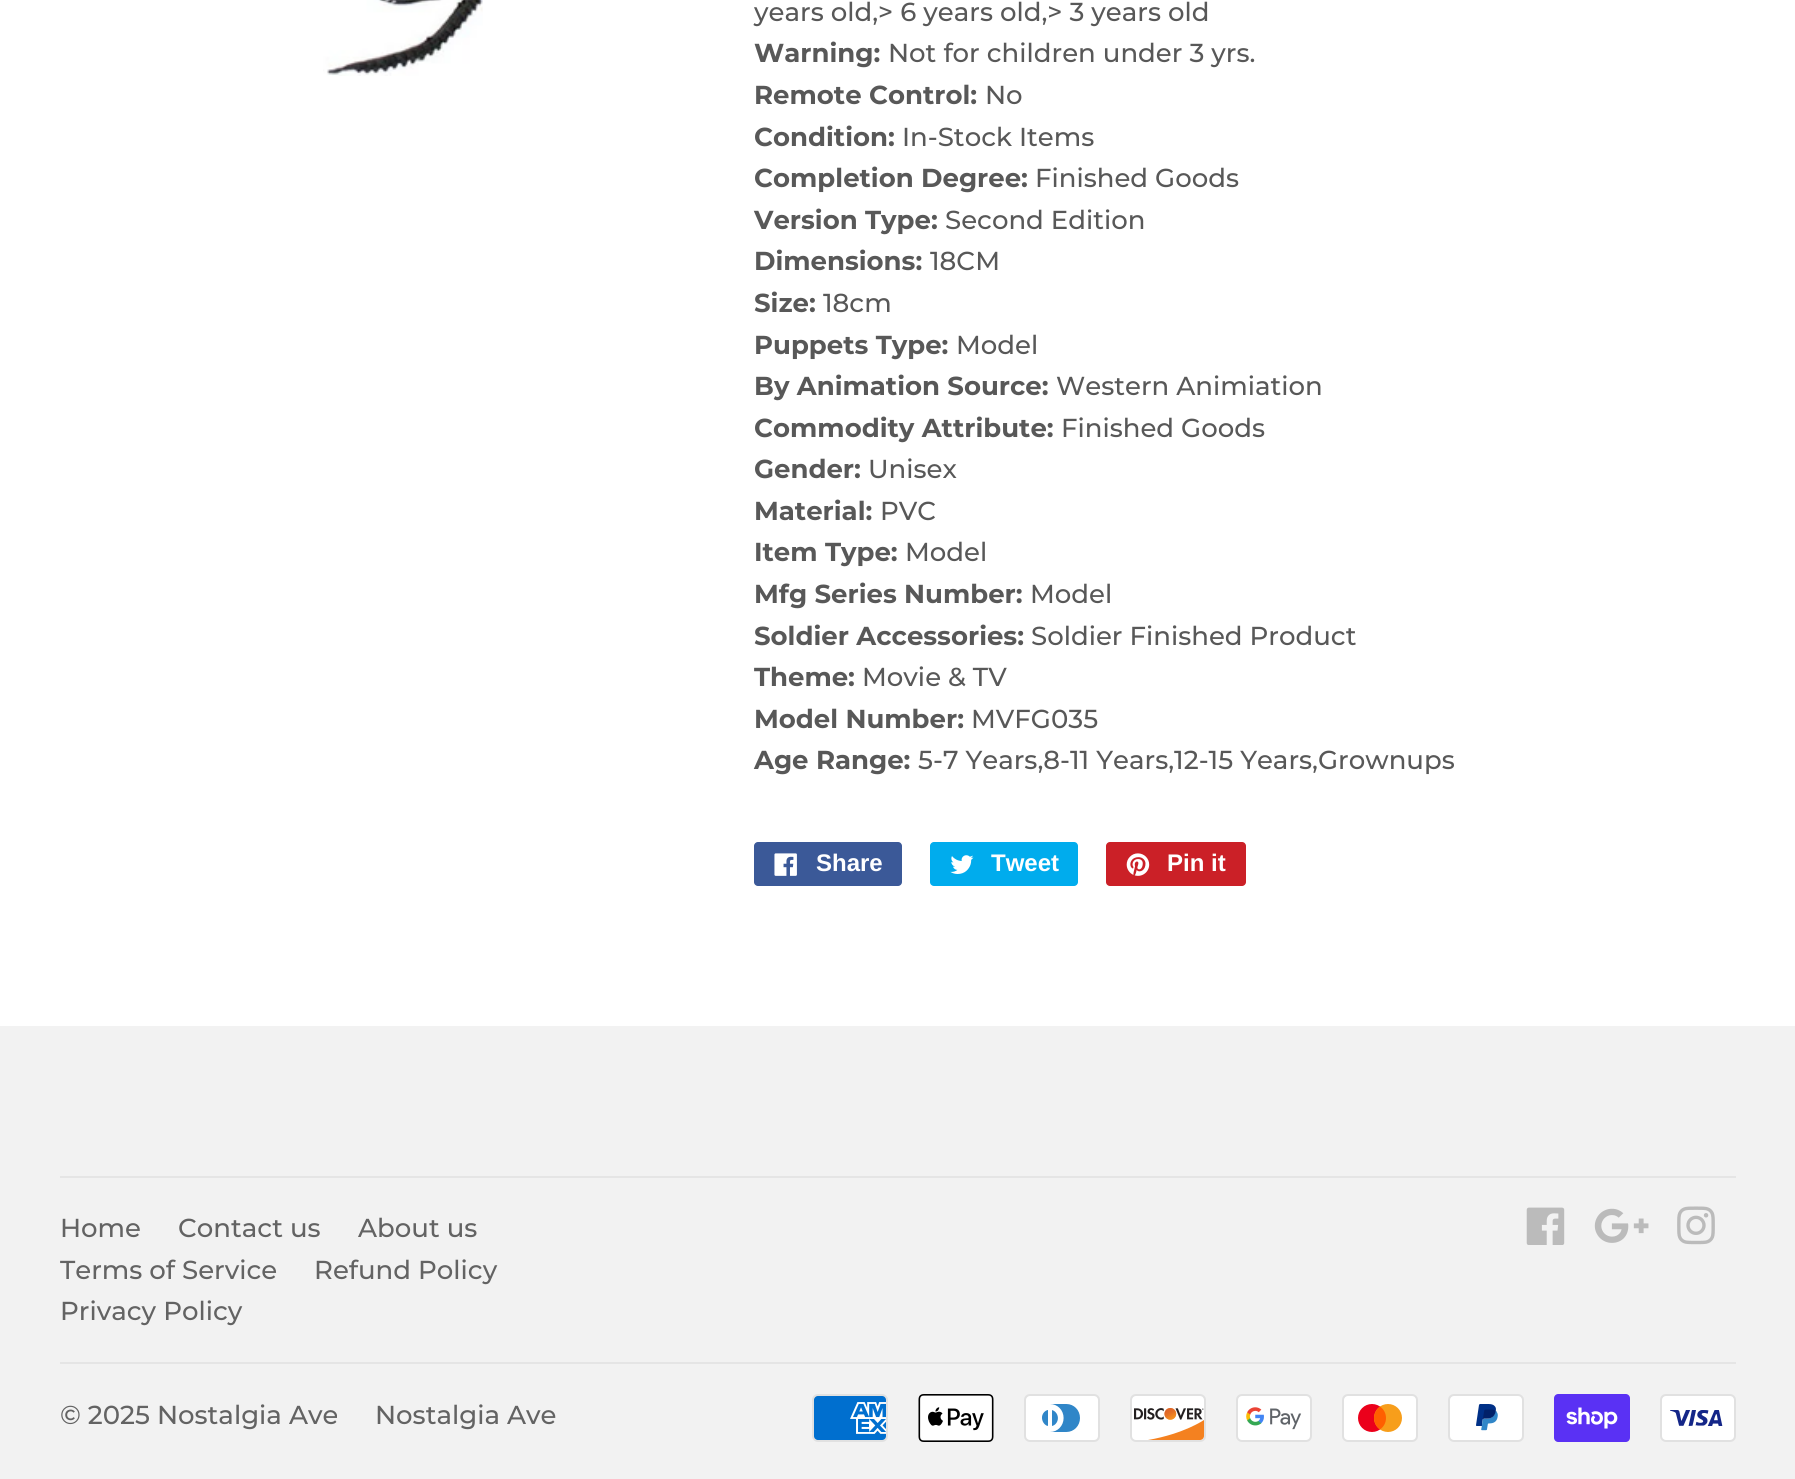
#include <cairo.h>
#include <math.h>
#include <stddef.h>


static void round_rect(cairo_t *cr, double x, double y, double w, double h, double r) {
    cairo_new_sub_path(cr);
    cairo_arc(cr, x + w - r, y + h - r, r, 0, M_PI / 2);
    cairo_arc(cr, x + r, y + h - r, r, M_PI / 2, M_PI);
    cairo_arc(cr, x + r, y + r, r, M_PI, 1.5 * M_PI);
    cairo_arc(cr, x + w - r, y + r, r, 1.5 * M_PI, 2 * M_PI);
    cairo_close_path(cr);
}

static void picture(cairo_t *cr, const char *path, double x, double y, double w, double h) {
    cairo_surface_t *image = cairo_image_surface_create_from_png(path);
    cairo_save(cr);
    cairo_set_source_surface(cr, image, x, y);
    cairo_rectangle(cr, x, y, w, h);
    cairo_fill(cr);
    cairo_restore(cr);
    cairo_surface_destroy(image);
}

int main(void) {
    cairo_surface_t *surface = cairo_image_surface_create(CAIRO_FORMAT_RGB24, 1795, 1479);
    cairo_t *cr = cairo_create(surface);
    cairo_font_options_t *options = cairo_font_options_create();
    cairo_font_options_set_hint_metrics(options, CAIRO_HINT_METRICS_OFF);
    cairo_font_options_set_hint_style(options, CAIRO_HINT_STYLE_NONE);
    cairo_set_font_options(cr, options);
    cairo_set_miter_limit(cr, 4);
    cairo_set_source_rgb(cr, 1, 1, 1);
    cairo_paint(cr);
    picture(cr, "img1.png", 323, 0, 160, 76);
    cairo_select_font_face(cr, "Montserrat Medium", CAIRO_FONT_SLANT_NORMAL, CAIRO_FONT_WEIGHT_NORMAL);
    cairo_set_font_size(cr, 26);
    cairo_set_source_rgb(cr, 0.345, 0.345, 0.345);
    cairo_move_to(cr, 754, 21);
    cairo_show_text(cr, "years old,> 6 years old,> 3 years old");
    cairo_select_font_face(cr, "Montserrat", CAIRO_FONT_SLANT_NORMAL, CAIRO_FONT_WEIGHT_BOLD);
    cairo_move_to(cr, 754, 62);
    cairo_show_text(cr, "Warning:");
    cairo_select_font_face(cr, "Montserrat Medium", CAIRO_FONT_SLANT_NORMAL, CAIRO_FONT_WEIGHT_NORMAL);
    cairo_move_to(cr, 888, 62);
    cairo_show_text(cr, "Not for children under 3 yrs.");
    cairo_select_font_face(cr, "Montserrat", CAIRO_FONT_SLANT_NORMAL, CAIRO_FONT_WEIGHT_BOLD);
    cairo_move_to(cr, 754, 104);
    cairo_show_text(cr, "Remote Control:");
    cairo_select_font_face(cr, "Montserrat Medium", CAIRO_FONT_SLANT_NORMAL, CAIRO_FONT_WEIGHT_NORMAL);
    cairo_move_to(cr, 985, 104);
    cairo_show_text(cr, "No");
    cairo_select_font_face(cr, "Montserrat", CAIRO_FONT_SLANT_NORMAL, CAIRO_FONT_WEIGHT_BOLD);
    cairo_move_to(cr, 754, 146);
    cairo_show_text(cr, "Condition:");
    cairo_select_font_face(cr, "Montserrat Medium", CAIRO_FONT_SLANT_NORMAL, CAIRO_FONT_WEIGHT_NORMAL);
    cairo_move_to(cr, 902, 146);
    cairo_show_text(cr, "In-Stock Items");
    cairo_select_font_face(cr, "Montserrat", CAIRO_FONT_SLANT_NORMAL, CAIRO_FONT_WEIGHT_BOLD);
    cairo_move_to(cr, 754, 187);
    cairo_show_text(cr, "Completion Degree:");
    cairo_select_font_face(cr, "Montserrat Medium", CAIRO_FONT_SLANT_NORMAL, CAIRO_FONT_WEIGHT_NORMAL);
    cairo_move_to(cr, 1035, 187);
    cairo_show_text(cr, "Finished Goods");
    cairo_select_font_face(cr, "Montserrat", CAIRO_FONT_SLANT_NORMAL, CAIRO_FONT_WEIGHT_BOLD);
    cairo_move_to(cr, 754, 229);
    cairo_show_text(cr, "Version Type:");
    cairo_select_font_face(cr, "Montserrat Medium", CAIRO_FONT_SLANT_NORMAL, CAIRO_FONT_WEIGHT_NORMAL);
    cairo_move_to(cr, 945, 229);
    cairo_show_text(cr, "Second Edition");
    cairo_select_font_face(cr, "Montserrat", CAIRO_FONT_SLANT_NORMAL, CAIRO_FONT_WEIGHT_BOLD);
    cairo_move_to(cr, 754, 270);
    cairo_show_text(cr, "Dimensions:");
    cairo_select_font_face(cr, "Montserrat Medium", CAIRO_FONT_SLANT_NORMAL, CAIRO_FONT_WEIGHT_NORMAL);
    cairo_move_to(cr, 930, 270);
    cairo_show_text(cr, "18CM");
    cairo_select_font_face(cr, "Montserrat", CAIRO_FONT_SLANT_NORMAL, CAIRO_FONT_WEIGHT_BOLD);
    cairo_move_to(cr, 754, 312);
    cairo_show_text(cr, "Size:");
    cairo_select_font_face(cr, "Montserrat Medium", CAIRO_FONT_SLANT_NORMAL, CAIRO_FONT_WEIGHT_NORMAL);
    cairo_move_to(cr, 823, 312);
    cairo_show_text(cr, "18cm");
    cairo_select_font_face(cr, "Montserrat", CAIRO_FONT_SLANT_NORMAL, CAIRO_FONT_WEIGHT_BOLD);
    cairo_move_to(cr, 754, 354);
    cairo_show_text(cr, "Puppets Type:");
    cairo_select_font_face(cr, "Montserrat Medium", CAIRO_FONT_SLANT_NORMAL, CAIRO_FONT_WEIGHT_NORMAL);
    cairo_move_to(cr, 956, 354);
    cairo_show_text(cr, "Model");
    cairo_select_font_face(cr, "Montserrat", CAIRO_FONT_SLANT_NORMAL, CAIRO_FONT_WEIGHT_BOLD);
    cairo_move_to(cr, 754, 395);
    cairo_show_text(cr, "By Animation Source:");
    cairo_select_font_face(cr, "Montserrat Medium", CAIRO_FONT_SLANT_NORMAL, CAIRO_FONT_WEIGHT_NORMAL);
    cairo_move_to(cr, 1056, 395);
    cairo_show_text(cr, "Western Animiation");
    cairo_select_font_face(cr, "Montserrat", CAIRO_FONT_SLANT_NORMAL, CAIRO_FONT_WEIGHT_BOLD);
    cairo_move_to(cr, 754, 437);
    cairo_show_text(cr, "Commodity Attribute:");
    cairo_select_font_face(cr, "Montserrat Medium", CAIRO_FONT_SLANT_NORMAL, CAIRO_FONT_WEIGHT_NORMAL);
    cairo_move_to(cr, 1061, 437);
    cairo_show_text(cr, "Finished Goods");
    cairo_select_font_face(cr, "Montserrat", CAIRO_FONT_SLANT_NORMAL, CAIRO_FONT_WEIGHT_BOLD);
    cairo_move_to(cr, 754, 478);
    cairo_show_text(cr, "Gender:");
    cairo_select_font_face(cr, "Montserrat Medium", CAIRO_FONT_SLANT_NORMAL, CAIRO_FONT_WEIGHT_NORMAL);
    cairo_move_to(cr, 868, 478);
    cairo_show_text(cr, "Unisex");
    cairo_select_font_face(cr, "Montserrat", CAIRO_FONT_SLANT_NORMAL, CAIRO_FONT_WEIGHT_BOLD);
    cairo_move_to(cr, 754, 520);
    cairo_show_text(cr, "Material:");
    cairo_select_font_face(cr, "Montserrat Medium", CAIRO_FONT_SLANT_NORMAL, CAIRO_FONT_WEIGHT_NORMAL);
    cairo_move_to(cr, 880, 520);
    cairo_show_text(cr, "PVC");
    cairo_select_font_face(cr, "Montserrat", CAIRO_FONT_SLANT_NORMAL, CAIRO_FONT_WEIGHT_BOLD);
    cairo_move_to(cr, 754, 561);
    cairo_show_text(cr, "Item Type:");
    cairo_select_font_face(cr, "Montserrat Medium", CAIRO_FONT_SLANT_NORMAL, CAIRO_FONT_WEIGHT_NORMAL);
    cairo_move_to(cr, 905, 561);
    cairo_show_text(cr, "Model");
    cairo_select_font_face(cr, "Montserrat", CAIRO_FONT_SLANT_NORMAL, CAIRO_FONT_WEIGHT_BOLD);
    cairo_move_to(cr, 754, 603);
    cairo_show_text(cr, "Mfg Series Number:");
    cairo_select_font_face(cr, "Montserrat Medium", CAIRO_FONT_SLANT_NORMAL, CAIRO_FONT_WEIGHT_NORMAL);
    cairo_move_to(cr, 1030, 603);
    cairo_show_text(cr, "Model");
    cairo_select_font_face(cr, "Montserrat", CAIRO_FONT_SLANT_NORMAL, CAIRO_FONT_WEIGHT_BOLD);
    cairo_move_to(cr, 754, 645);
    cairo_show_text(cr, "Soldier Accessories:");
    cairo_select_font_face(cr, "Montserrat Medium", CAIRO_FONT_SLANT_NORMAL, CAIRO_FONT_WEIGHT_NORMAL);
    cairo_move_to(cr, 1031, 645);
    cairo_show_text(cr, "Soldier Finished Product");
    cairo_select_font_face(cr, "Montserrat", CAIRO_FONT_SLANT_NORMAL, CAIRO_FONT_WEIGHT_BOLD);
    cairo_move_to(cr, 754, 686);
    cairo_show_text(cr, "Theme:");
    cairo_select_font_face(cr, "Montserrat Medium", CAIRO_FONT_SLANT_NORMAL, CAIRO_FONT_WEIGHT_NORMAL);
    cairo_move_to(cr, 862, 686);
    cairo_show_text(cr, "Movie & TV");
    cairo_select_font_face(cr, "Montserrat", CAIRO_FONT_SLANT_NORMAL, CAIRO_FONT_WEIGHT_BOLD);
    cairo_move_to(cr, 754, 728);
    cairo_show_text(cr, "Model Number:");
    cairo_select_font_face(cr, "Montserrat Medium", CAIRO_FONT_SLANT_NORMAL, CAIRO_FONT_WEIGHT_NORMAL);
    cairo_move_to(cr, 971, 728);
    cairo_show_text(cr, "MVFG035");
    cairo_select_font_face(cr, "Montserrat", CAIRO_FONT_SLANT_NORMAL, CAIRO_FONT_WEIGHT_BOLD);
    cairo_move_to(cr, 754, 769);
    cairo_show_text(cr, "Age Range:");
    cairo_select_font_face(cr, "Montserrat Medium", CAIRO_FONT_SLANT_NORMAL, CAIRO_FONT_WEIGHT_NORMAL);
    cairo_move_to(cr, 918, 769);
    cairo_show_text(cr, "5-7 Years,8-11 Years,12-15 Years,Grownups");
    cairo_set_source_rgb(cr, 0.231, 0.349, 0.596);
    round_rect(cr, 754, 842, 148, 44, 4);
    cairo_fill(cr);
    picture(cr, "img2.png", 774, 853, 23, 23);
    cairo_select_font_face(cr, "Liberation Sans", CAIRO_FONT_SLANT_NORMAL, CAIRO_FONT_WEIGHT_BOLD);
    cairo_set_font_size(cr, 24);
    cairo_set_source_rgb(cr, 1, 1, 1);
    cairo_move_to(cr, 816, 871);
    cairo_show_text(cr, "Share");
    cairo_set_source_rgb(cr, 0, 0.675, 0.929);
    round_rect(cr, 930, 842, 148, 44, 4);
    cairo_fill(cr);
    picture(cr, "img3.png", 950, 855, 24, 19);
    cairo_set_source_rgb(cr, 1, 1, 1);
    cairo_move_to(cr, 991, 871);
    cairo_show_text(cr, "Tweet");
    cairo_set_source_rgb(cr, 0.796, 0.125, 0.153);
    round_rect(cr, 1106, 842, 140, 44, 4);
    cairo_fill(cr);
    picture(cr, "img4.png", 1126, 853, 24, 23);
    cairo_set_source_rgb(cr, 1, 1, 1);
    cairo_move_to(cr, 1167, 871);
    cairo_show_text(cr, "Pin it");
    cairo_set_source_rgb(cr, 0.949, 0.949, 0.949);
    cairo_rectangle(cr, 0, 1026, 1795, 453);
    cairo_fill(cr);
    cairo_set_source_rgb(cr, 0.898, 0.898, 0.898);
    cairo_rectangle(cr, 60, 1176, 1676, 2);
    cairo_fill(cr);
    cairo_select_font_face(cr, "Montserrat Medium", CAIRO_FONT_SLANT_NORMAL, CAIRO_FONT_WEIGHT_NORMAL);
    cairo_set_font_size(cr, 26);
    cairo_set_source_rgb(cr, 0.388, 0.388, 0.388);
    cairo_move_to(cr, 60, 1237);
    cairo_show_text(cr, "Home");
    cairo_move_to(cr, 178, 1237);
    cairo_show_text(cr, "Contact us");
    cairo_move_to(cr, 358, 1237);
    cairo_show_text(cr, "About us");
    cairo_move_to(cr, 60, 1279);
    cairo_show_text(cr, "Terms of Service");
    cairo_move_to(cr, 314, 1279);
    cairo_show_text(cr, "Refund Policy");
    cairo_move_to(cr, 60, 1320);
    cairo_show_text(cr, "Privacy Policy");
    picture(cr, "img5.png", 1526, 1207, 39, 38);
    picture(cr, "img6.png", 1594, 1208, 55, 35);
    picture(cr, "img7.png", 1677, 1206, 38, 39);
    cairo_set_source_rgb(cr, 0.898, 0.898, 0.898);
    cairo_rectangle(cr, 60, 1362, 1676, 2);
    cairo_fill(cr);
    cairo_set_source_rgb(cr, 0.388, 0.388, 0.388);
    cairo_move_to(cr, 60, 1424);
    cairo_show_text(cr, "© 2025 Nostalgia Ave");
    cairo_move_to(cr, 375, 1424);
    cairo_show_text(cr, "Nostalgia Ave");
    picture(cr, "img8.png", 812, 1394, 76, 48);
    picture(cr, "img9.png", 918, 1394, 76, 48);
    picture(cr, "img10.png", 1024, 1394, 76, 48);
    picture(cr, "img11.png", 1130, 1394, 76, 48);
    picture(cr, "img12.png", 1236, 1394, 76, 48);
    picture(cr, "img13.png", 1342, 1394, 76, 48);
    picture(cr, "img14.png", 1448, 1394, 76, 48);
    picture(cr, "img15.png", 1554, 1394, 76, 48);
    picture(cr, "img16.png", 1660, 1394, 76, 48);
    cairo_surface_write_to_png(surface, "page.png");
    cairo_font_options_destroy(options);
    cairo_destroy(cr);
    cairo_surface_destroy(surface);
    return 0;
}
